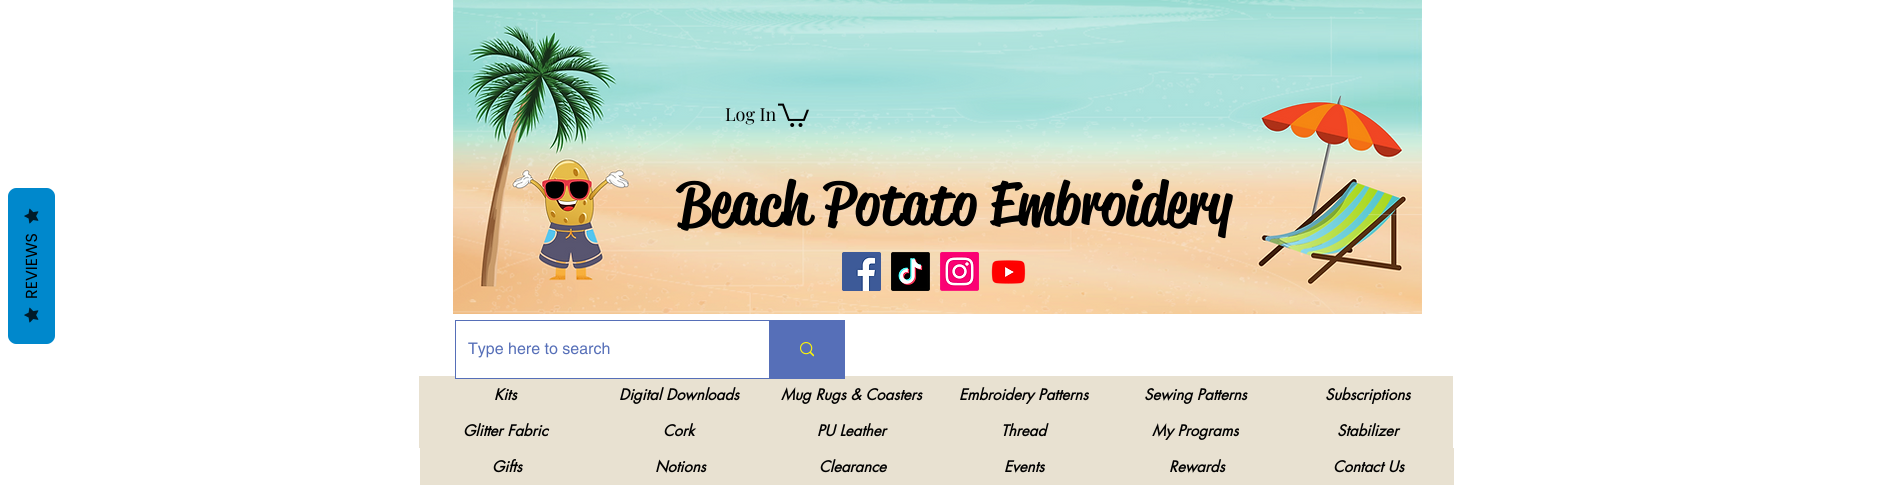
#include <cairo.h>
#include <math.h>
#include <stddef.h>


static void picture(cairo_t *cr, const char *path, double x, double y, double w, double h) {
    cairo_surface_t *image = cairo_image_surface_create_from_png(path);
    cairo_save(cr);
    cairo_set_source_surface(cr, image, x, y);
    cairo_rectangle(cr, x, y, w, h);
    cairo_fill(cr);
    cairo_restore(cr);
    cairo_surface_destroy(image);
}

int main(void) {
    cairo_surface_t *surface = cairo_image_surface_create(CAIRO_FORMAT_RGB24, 1890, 485);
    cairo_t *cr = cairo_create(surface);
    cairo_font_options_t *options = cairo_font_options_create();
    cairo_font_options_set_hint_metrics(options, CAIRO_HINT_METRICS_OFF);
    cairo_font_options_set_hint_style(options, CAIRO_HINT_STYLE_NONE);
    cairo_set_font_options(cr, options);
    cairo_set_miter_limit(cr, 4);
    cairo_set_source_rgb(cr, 1, 1, 1);
    cairo_paint(cr);
    cairo_set_source_rgb(cr, 0, 0.533, 0.8);
    cairo_new_path(cr);
    cairo_move_to(cr, 8, 336);
    cairo_line_to(cr, 8, 196);
    cairo_curve_to(cr, 8, 192, 12, 188, 16, 188);
    cairo_line_to(cr, 47, 188);
    cairo_curve_to(cr, 51, 188, 55, 192, 55, 196);
    cairo_line_to(cr, 55, 336);
    cairo_curve_to(cr, 55, 340, 51, 344, 47, 344);
    cairo_line_to(cr, 16, 344);
    cairo_curve_to(cr, 12, 344, 8, 340, 8, 336);
    cairo_close_path(cr);
    cairo_fill(cr);
    picture(cr, "img1.png", 24, 208, 15, 16);
    cairo_select_font_face(cr, "Poppins", CAIRO_FONT_SLANT_NORMAL, CAIRO_FONT_WEIGHT_NORMAL);
    cairo_set_font_size(cr, 16);
    cairo_set_source_rgb(cr, 0, 0, 0);
    cairo_save(cr);
    cairo_translate(cr, 37, 299);
    cairo_rotate(cr, -90 * M_PI / 180);
    cairo_move_to(cr, 0, 0);
    cairo_show_text(cr, "REVIEWS");
    cairo_restore(cr);
    picture(cr, "img1.png", 24, 307, 15, 16);
    picture(cr, "img2.png", 453, 0, 969, 314);
    cairo_select_font_face(cr, "Playfair Display", CAIRO_FONT_SLANT_NORMAL, CAIRO_FONT_WEIGHT_NORMAL);
    cairo_set_font_size(cr, 18);
    cairo_move_to(cr, 725, 121);
    cairo_show_text(cr, "Log In");
    picture(cr, "img3.png", 778, 103, 31, 24);
    cairo_select_font_face(cr, "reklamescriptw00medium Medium", CAIRO_FONT_SLANT_NORMAL, CAIRO_FONT_WEIGHT_NORMAL);
    cairo_set_font_size(cr, 60);
    cairo_move_to(cr, 677, 224);
    cairo_show_text(cr, "Beach Potato Embroidery");
    picture(cr, "img4.png", 842, 252, 39, 39);
    picture(cr, "img5.png", 891, 252, 39, 39);
    picture(cr, "img6.png", 940, 252, 39, 39);
    picture(cr, "img7.png", 991, 260, 35, 24);
    cairo_set_source_rgb(cr, 0.91, 0.882, 0.82);
    cairo_rectangle(cr, 419, 376, 1034, 72);
    cairo_fill(cr);
    cairo_rectangle(cr, 455.5, 320.5, 389, 58);
    cairo_set_source_rgb(cr, 0.337, 0.435, 0.722);
    cairo_set_line_width(cr, 1);
    cairo_stroke(cr);
    cairo_set_source_rgb(cr, 1, 1, 1);
    cairo_rectangle(cr, 456, 376, 313, 2);
    cairo_fill(cr);
    cairo_select_font_face(cr, "helvetica", CAIRO_FONT_SLANT_NORMAL, CAIRO_FONT_WEIGHT_NORMAL);
    cairo_set_font_size(cr, 16);
    cairo_set_source_rgb(cr, 0.337, 0.435, 0.722);
    cairo_move_to(cr, 468, 354);
    cairo_show_text(cr, "Type here to search");
    cairo_rectangle(cr, 769, 321, 75, 57);
    cairo_fill(cr);
    picture(cr, "img8.png", 800, 342, 14, 15);
    cairo_select_font_face(cr, "futura", CAIRO_FONT_SLANT_ITALIC, CAIRO_FONT_WEIGHT_BOLD);
    cairo_set_font_size(cr, 15);
    cairo_set_source_rgb(cr, 0, 0, 0);
    cairo_move_to(cr, 494, 400);
    cairo_show_text(cr, "Kits");
    cairo_move_to(cr, 619, 400);
    cairo_show_text(cr, "Digital Downloads");
    cairo_move_to(cr, 781, 400);
    cairo_show_text(cr, "Mug Rugs & Coasters");
    cairo_move_to(cr, 959, 400);
    cairo_show_text(cr, "Embroidery Patterns");
    cairo_move_to(cr, 1144, 400);
    cairo_show_text(cr, "Sewing Patterns");
    cairo_move_to(cr, 1325, 400);
    cairo_show_text(cr, "Subscriptions");
    cairo_move_to(cr, 463, 436);
    cairo_show_text(cr, "Glitter Fabric");
    cairo_move_to(cr, 663, 436);
    cairo_show_text(cr, "Cork");
    cairo_move_to(cr, 817, 436);
    cairo_show_text(cr, "PU Leather");
    cairo_move_to(cr, 1001, 436);
    cairo_show_text(cr, "Thread");
    cairo_move_to(cr, 1152, 436);
    cairo_show_text(cr, "My Programs");
    cairo_move_to(cr, 1337, 436);
    cairo_show_text(cr, "Stabilizer");
    cairo_set_source_rgb(cr, 0.91, 0.882, 0.82);
    cairo_rectangle(cr, 420, 448, 1034, 37);
    cairo_fill(cr);
    cairo_set_source_rgb(cr, 0, 0, 0);
    cairo_move_to(cr, 492, 472);
    cairo_show_text(cr, "Gifts");
    cairo_move_to(cr, 655, 472);
    cairo_show_text(cr, "Notions");
    cairo_move_to(cr, 819, 472);
    cairo_show_text(cr, "Clearance");
    cairo_move_to(cr, 1004, 472);
    cairo_show_text(cr, "Events");
    cairo_move_to(cr, 1169, 472);
    cairo_show_text(cr, "Rewards");
    cairo_move_to(cr, 1333, 472);
    cairo_show_text(cr, "Contact Us");
    cairo_surface_write_to_png(surface, "page.png");
    cairo_font_options_destroy(options);
    cairo_destroy(cr);
    cairo_surface_destroy(surface);
    return 0;
}
